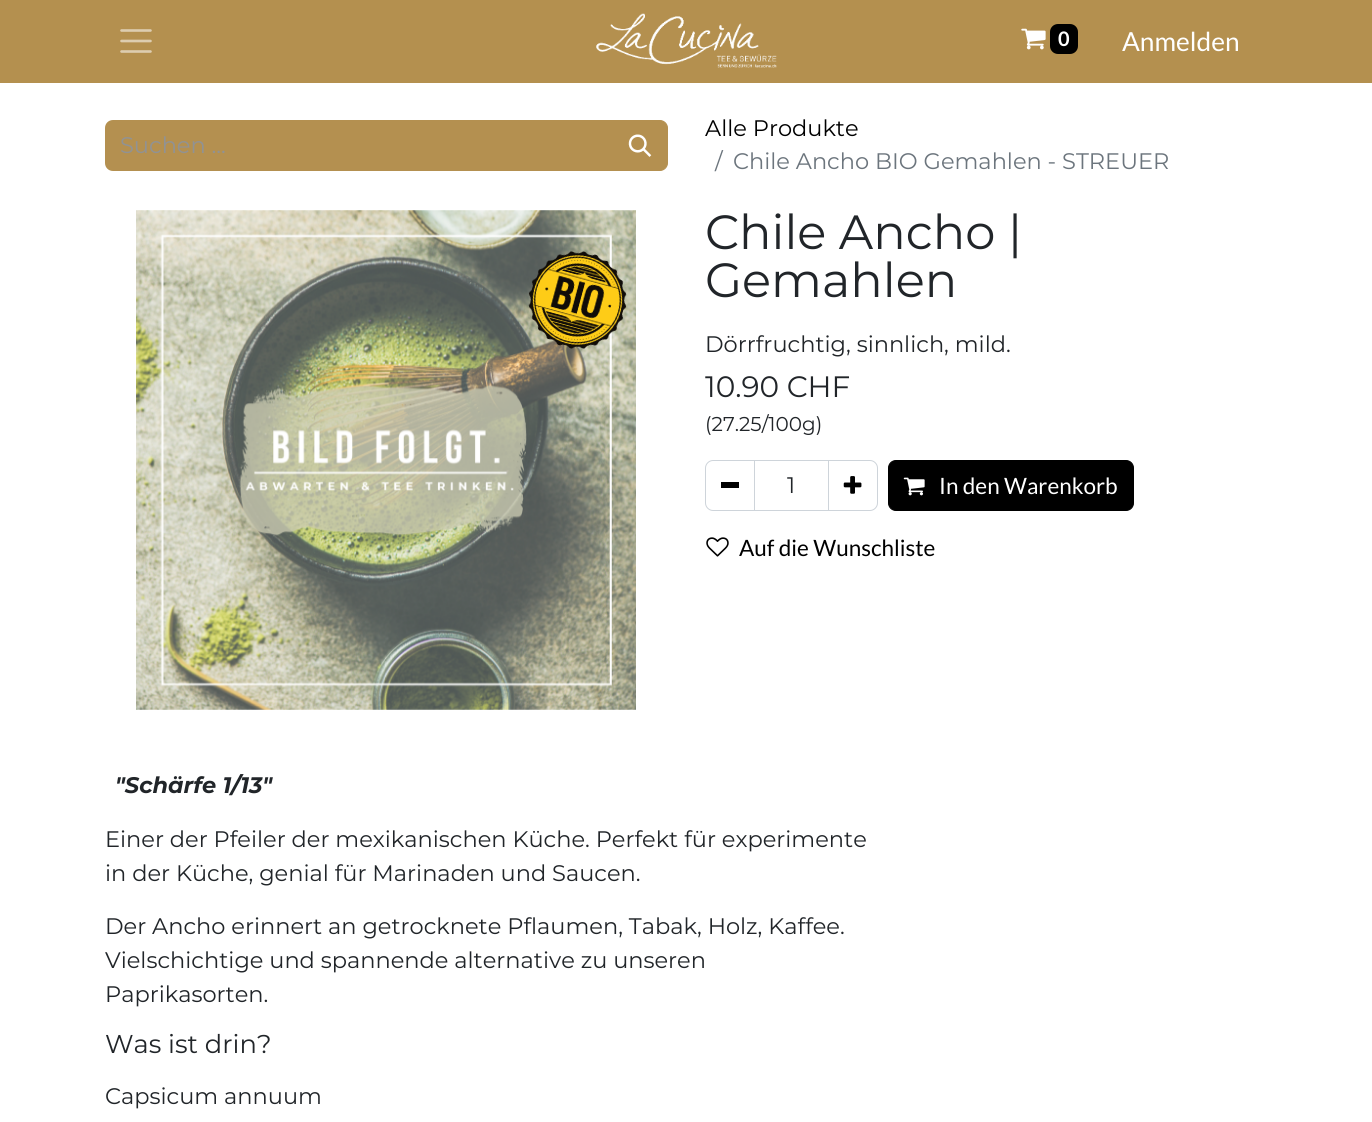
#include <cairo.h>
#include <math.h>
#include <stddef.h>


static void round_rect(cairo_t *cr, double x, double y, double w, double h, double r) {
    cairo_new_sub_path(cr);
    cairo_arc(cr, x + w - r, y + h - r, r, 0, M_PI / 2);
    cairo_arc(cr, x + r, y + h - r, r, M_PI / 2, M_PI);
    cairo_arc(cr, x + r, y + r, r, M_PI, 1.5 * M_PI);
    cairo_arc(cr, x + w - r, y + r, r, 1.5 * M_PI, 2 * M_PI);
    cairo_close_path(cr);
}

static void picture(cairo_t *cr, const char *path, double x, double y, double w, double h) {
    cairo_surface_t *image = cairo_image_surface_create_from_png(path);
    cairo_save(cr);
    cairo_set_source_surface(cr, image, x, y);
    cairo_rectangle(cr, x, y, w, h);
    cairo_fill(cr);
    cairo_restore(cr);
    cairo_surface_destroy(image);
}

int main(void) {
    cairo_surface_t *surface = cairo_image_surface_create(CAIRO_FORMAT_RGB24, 1372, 1122);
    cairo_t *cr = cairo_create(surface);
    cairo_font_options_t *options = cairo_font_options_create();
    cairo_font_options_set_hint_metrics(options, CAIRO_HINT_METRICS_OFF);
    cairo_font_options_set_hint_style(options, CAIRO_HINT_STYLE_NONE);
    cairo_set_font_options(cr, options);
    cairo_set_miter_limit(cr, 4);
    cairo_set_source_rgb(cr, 1, 1, 1);
    cairo_paint(cr);
    cairo_set_source_rgb(cr, 0.706, 0.565, 0.31);
    cairo_rectangle(cr, 0, 0, 1372, 83);
    cairo_fill(cr);
    cairo_new_path(cr);
    cairo_move_to(cr, 121.5, 30.5);
    cairo_line_to(cr, 150.5, 30.5);
    cairo_move_to(cr, 121.5, 41);
    cairo_line_to(cr, 150.5, 41);
    cairo_move_to(cr, 121.5, 51.5);
    cairo_line_to(cr, 150.5, 51.5);
    cairo_set_source_rgb(cr, 0.867, 0.804, 0.69);
    cairo_set_line_width(cr, 2.6);
    cairo_set_line_cap(cr, CAIRO_LINE_CAP_ROUND);
    cairo_stroke(cr);
    picture(cr, "img1.png", 596, 13, 181, 55);
    picture(cr, "img2.png", 1021, 28, 25, 22);
    cairo_set_source_rgb(cr, 0, 0, 0);
    round_rect(cr, 1050, 24, 28, 30, 8);
    cairo_fill(cr);
    cairo_select_font_face(cr, "Lato", CAIRO_FONT_SLANT_NORMAL, CAIRO_FONT_WEIGHT_BOLD);
    cairo_set_font_size(cr, 20);
    cairo_set_source_rgb(cr, 1, 1, 1);
    cairo_move_to(cr, 1058, 46);
    cairo_show_text(cr, "0");
    cairo_select_font_face(cr, "Lato", CAIRO_FONT_SLANT_NORMAL, CAIRO_FONT_WEIGHT_NORMAL);
    cairo_set_font_size(cr, 26.25);
    cairo_move_to(cr, 1122, 51);
    cairo_show_text(cr, "Anmelden");
    cairo_set_source_rgb(cr, 0.706, 0.565, 0.314);
    cairo_new_path(cr);
    cairo_move_to(cr, 113, 120);
    cairo_line_to(cr, 614, 120);
    cairo_line_to(cr, 614, 171);
    cairo_line_to(cr, 113, 171);
    cairo_curve_to(cr, 108.5, 171, 105, 167.5, 105, 163);
    cairo_line_to(cr, 105, 128);
    cairo_curve_to(cr, 105, 123.5, 108.5, 120, 113, 120);
    cairo_close_path(cr);
    cairo_fill(cr);
    cairo_select_font_face(cr, "Montserrat", CAIRO_FONT_SLANT_NORMAL, CAIRO_FONT_WEIGHT_NORMAL);
    cairo_set_font_size(cr, 22.5);
    cairo_set_source_rgb(cr, 0.565, 0.573, 0.58);
    cairo_move_to(cr, 120, 153);
    cairo_show_text(cr, "Suchen ...");
    cairo_set_source_rgb(cr, 0.706, 0.565, 0.314);
    cairo_new_path(cr);
    cairo_move_to(cr, 613.5, 120.5);
    cairo_line_to(cr, 660, 120.5);
    cairo_curve_to(cr, 664, 120.5, 667.5, 124, 667.5, 128);
    cairo_line_to(cr, 667.5, 163);
    cairo_curve_to(cr, 667.5, 167, 664, 170.5, 660, 170.5);
    cairo_line_to(cr, 613.5, 170.5);
    cairo_close_path(cr);
    cairo_fill_preserve(cr);
    cairo_set_line_width(cr, 1);
    cairo_set_line_cap(cr, CAIRO_LINE_CAP_BUTT);
    cairo_stroke(cr);
    picture(cr, "img3.png", 628, 134, 24, 23);
    cairo_set_source_rgb(cr, 0, 0, 0);
    cairo_move_to(cr, 705, 136);
    cairo_show_text(cr, "Alle Produkte");
    cairo_set_source_rgb(cr, 0.424, 0.459, 0.49);
    cairo_move_to(cr, 715, 169);
    cairo_show_text(cr, "/");
    cairo_move_to(cr, 733, 169);
    cairo_show_text(cr, "Chile Ancho BIO Gemahlen - STREUER");
    picture(cr, "img4.png", 136, 210, 500, 500);
    picture(cr, "img5.png", 528, 251, 99, 98);
    cairo_set_font_size(cr, 48);
    cairo_set_source_rgb(cr, 0.129, 0.145, 0.161);
    cairo_move_to(cr, 705, 249);
    cairo_show_text(cr, "Chile Ancho |");
    cairo_move_to(cr, 705, 297);
    cairo_show_text(cr, "Gemahlen");
    cairo_set_font_size(cr, 22.5);
    cairo_move_to(cr, 705, 352);
    cairo_show_text(cr, "Dörrfruchtig, sinnlich, mild.");
    cairo_set_font_size(cr, 29.5);
    cairo_move_to(cr, 705, 397);
    cairo_show_text(cr, "10.90 CHF");
    cairo_set_font_size(cr, 20);
    cairo_move_to(cr, 705, 431);
    cairo_show_text(cr, "(27.25/100g)");
    cairo_rectangle(cr, 754.5, 460.5, 74, 50);
    cairo_set_source_rgb(cr, 0.808, 0.831, 0.855);
    cairo_stroke(cr);
    cairo_new_path(cr);
    cairo_move_to(cr, 713, 460.5);
    cairo_line_to(cr, 754.5, 460.5);
    cairo_line_to(cr, 754.5, 510.5);
    cairo_line_to(cr, 713, 510.5);
    cairo_curve_to(cr, 709, 510.5, 705.5, 507, 705.5, 503);
    cairo_line_to(cr, 705.5, 468);
    cairo_curve_to(cr, 705.5, 464, 709, 460.5, 713, 460.5);
    cairo_close_path(cr);
    cairo_stroke(cr);
    cairo_set_source_rgb(cr, 0, 0, 0);
    cairo_rectangle(cr, 721, 482, 18, 6);
    cairo_fill(cr);
    cairo_set_font_size(cr, 22.5);
    cairo_set_source_rgb(cr, 0.129, 0.145, 0.161);
    cairo_move_to(cr, 787, 493);
    cairo_show_text(cr, "1");
    cairo_new_path(cr);
    cairo_move_to(cr, 828.5, 460.5);
    cairo_line_to(cr, 870, 460.5);
    cairo_curve_to(cr, 874, 460.5, 877.5, 464, 877.5, 468);
    cairo_line_to(cr, 877.5, 503);
    cairo_curve_to(cr, 877.5, 507, 874, 510.5, 870, 510.5);
    cairo_line_to(cr, 828.5, 510.5);
    cairo_close_path(cr);
    cairo_set_source_rgb(cr, 0.808, 0.831, 0.855);
    cairo_stroke(cr);
    picture(cr, "img6.png", 843, 476, 19, 18);
    cairo_set_source_rgb(cr, 0, 0, 0);
    round_rect(cr, 888.5, 460.5, 245, 50, 7.5);
    cairo_fill_preserve(cr);
    cairo_stroke(cr);
    picture(cr, "img7.png", 903, 477, 22, 19);
    cairo_select_font_face(cr, "Lato", CAIRO_FONT_SLANT_NORMAL, CAIRO_FONT_WEIGHT_NORMAL);
    cairo_set_source_rgb(cr, 1, 1, 1);
    cairo_move_to(cr, 939, 494);
    cairo_show_text(cr, "In den Warenkorb");
    picture(cr, "img8.png", 706, 537, 23, 20);
    cairo_set_source_rgb(cr, 0, 0, 0);
    cairo_move_to(cr, 739, 556);
    cairo_show_text(cr, "Auf die Wunschliste");
    cairo_select_font_face(cr, "Montserrat", CAIRO_FONT_SLANT_ITALIC, CAIRO_FONT_WEIGHT_BOLD);
    cairo_set_source_rgb(cr, 0.129, 0.145, 0.161);
    cairo_move_to(cr, 115, 793);
    cairo_show_text(cr, "\"Schärfe 1/13\"");
    cairo_select_font_face(cr, "Montserrat", CAIRO_FONT_SLANT_NORMAL, CAIRO_FONT_WEIGHT_NORMAL);
    cairo_move_to(cr, 105, 847);
    cairo_show_text(cr, "Einer der Pfeiler der mexikanischen Küche. Perfekt für experimente");
    cairo_move_to(cr, 105, 881);
    cairo_show_text(cr, "in der Küche, genial für Marinaden und Saucen.");
    cairo_move_to(cr, 105, 934);
    cairo_show_text(cr, "Der Ancho erinnert an getrocknete Pflaumen, Tabak, Holz, Kaffee.");
    cairo_move_to(cr, 105, 968);
    cairo_show_text(cr, "Vielschichtige und spannende alternative zu unseren");
    cairo_move_to(cr, 105, 1002);
    cairo_show_text(cr, "Paprikasorten.");
    cairo_set_font_size(cr, 25.75);
    cairo_move_to(cr, 105, 1053);
    cairo_show_text(cr, "Was ist drin?");
    cairo_set_font_size(cr, 22.5);
    cairo_move_to(cr, 105, 1104);
    cairo_show_text(cr, "Capsicum annuum");
    cairo_surface_write_to_png(surface, "page.png");
    cairo_font_options_destroy(options);
    cairo_destroy(cr);
    cairo_surface_destroy(surface);
    return 0;
}
